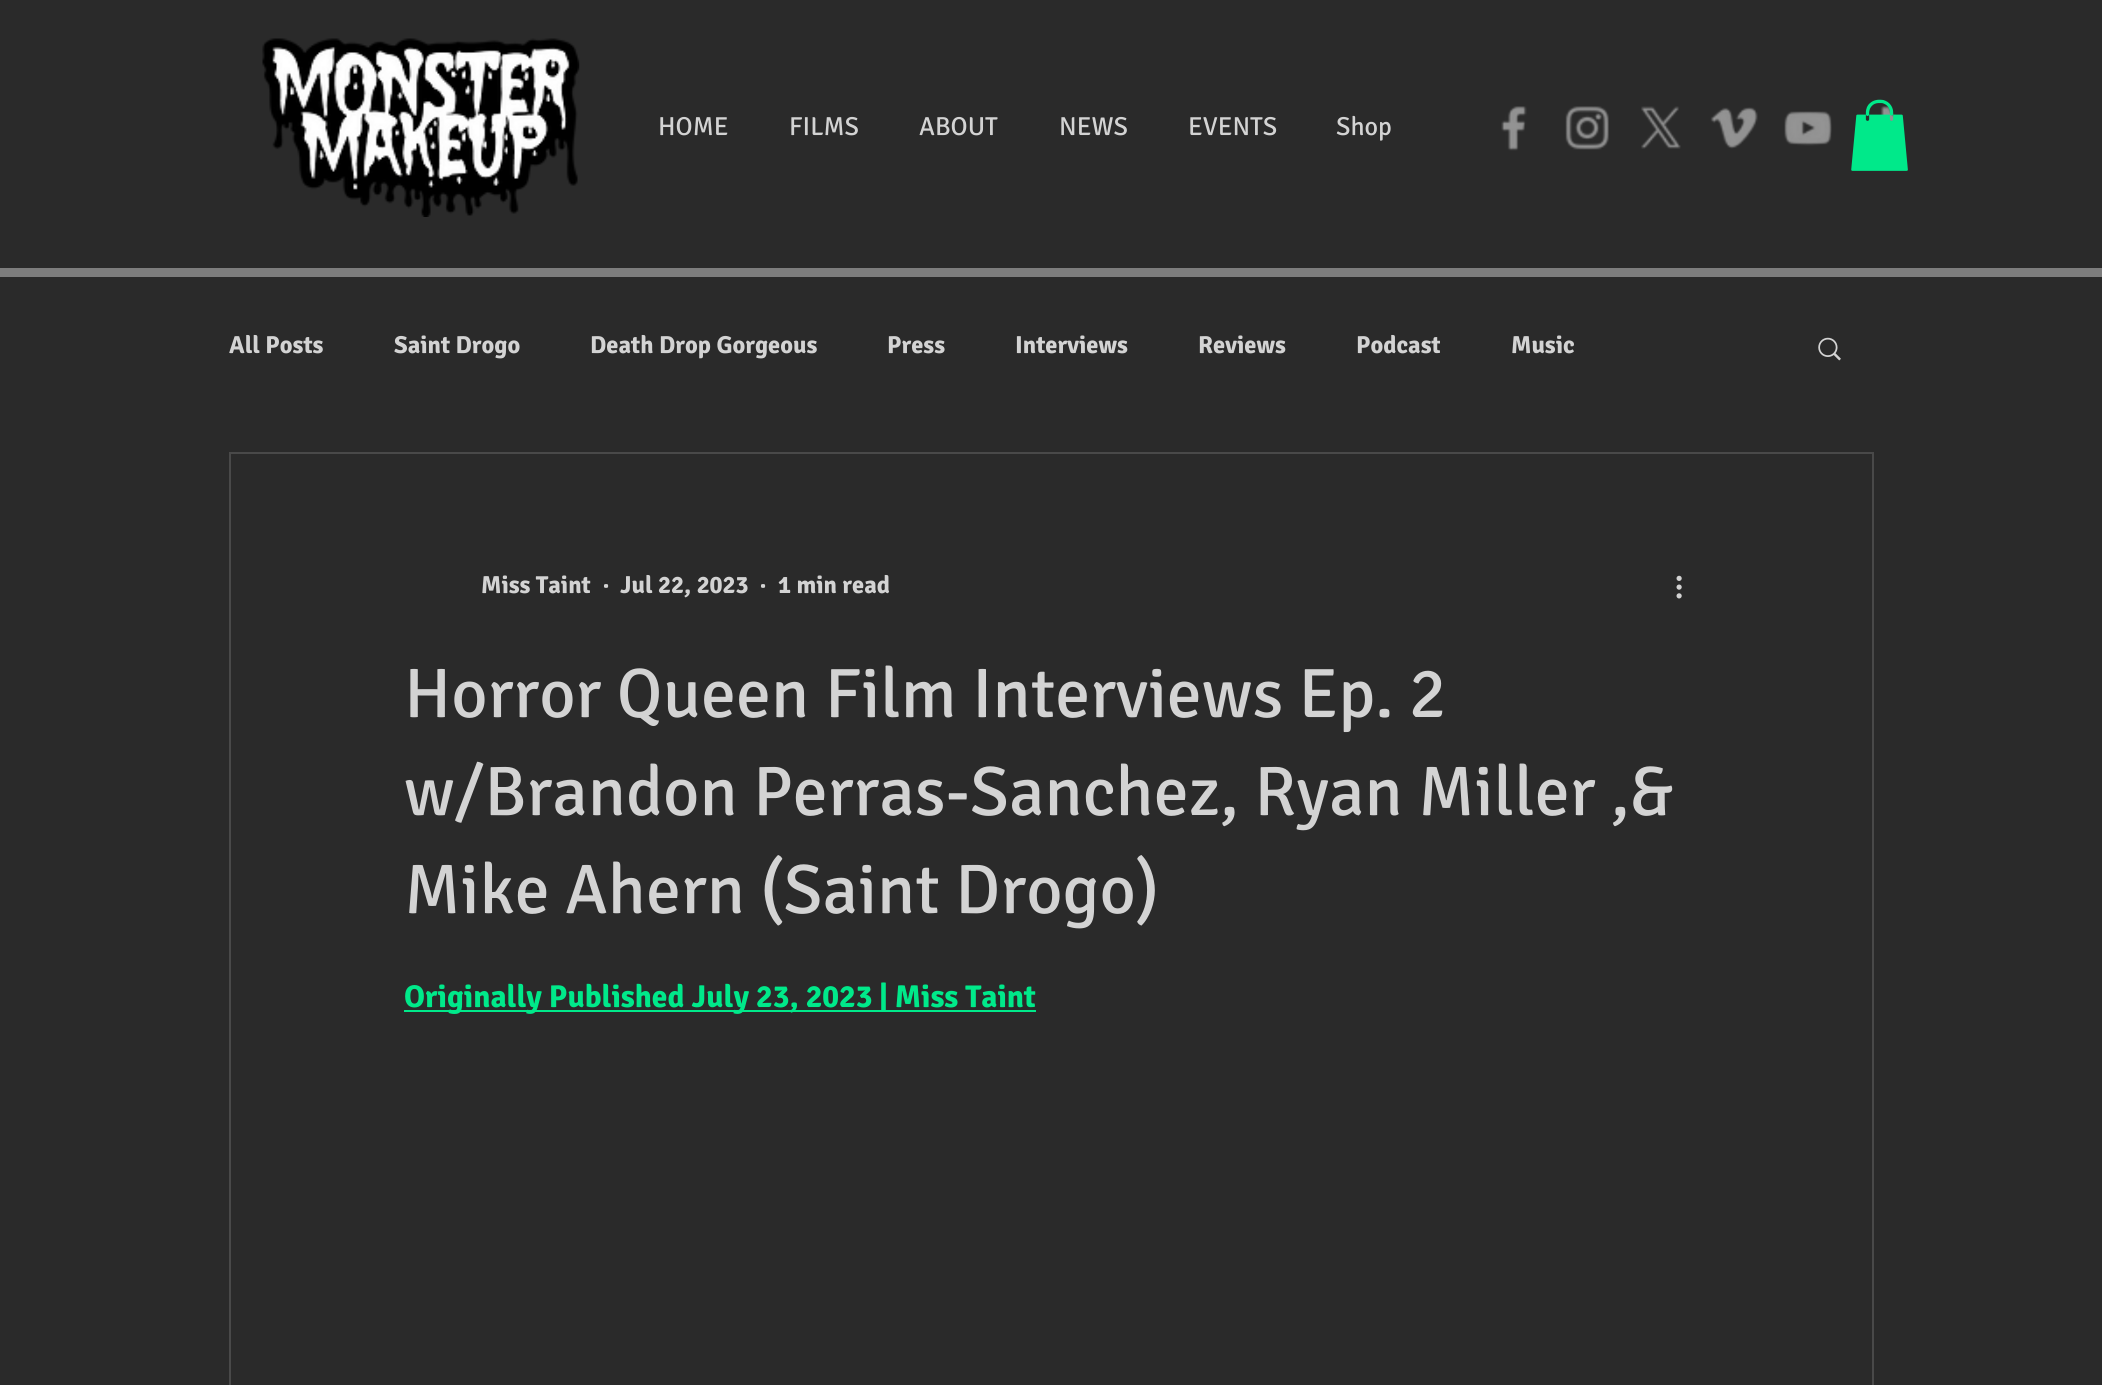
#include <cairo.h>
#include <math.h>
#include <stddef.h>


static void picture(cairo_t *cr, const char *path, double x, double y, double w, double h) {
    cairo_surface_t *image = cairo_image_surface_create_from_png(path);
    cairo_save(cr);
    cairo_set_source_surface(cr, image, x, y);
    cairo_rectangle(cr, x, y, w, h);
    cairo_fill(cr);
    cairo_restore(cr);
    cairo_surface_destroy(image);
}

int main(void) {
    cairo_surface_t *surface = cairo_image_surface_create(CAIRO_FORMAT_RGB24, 2102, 1385);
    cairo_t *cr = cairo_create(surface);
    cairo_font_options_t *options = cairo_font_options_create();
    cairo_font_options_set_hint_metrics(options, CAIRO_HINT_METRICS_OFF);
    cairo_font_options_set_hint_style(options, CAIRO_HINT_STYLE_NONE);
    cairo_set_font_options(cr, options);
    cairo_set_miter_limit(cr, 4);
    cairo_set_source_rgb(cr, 0.165, 0.165, 0.165);
    cairo_paint(cr);
    picture(cr, "img1.png", 262, 38, 318, 179);
    picture(cr, "img8.png", 1880, 106, 16, 15);
    picture(cr, "img2.png", 1851, 99, 57, 72);
    cairo_select_font_face(cr, "Signika", CAIRO_FONT_SLANT_NORMAL, CAIRO_FONT_WEIGHT_NORMAL);
    cairo_set_font_size(cr, 26);
    cairo_set_source_rgb(cr, 0.827, 0.827, 0.827);
    cairo_move_to(cr, 658, 135);
    cairo_show_text(cr, "HOME");
    cairo_move_to(cr, 789, 135);
    cairo_show_text(cr, "FILMS");
    cairo_move_to(cr, 919, 135);
    cairo_show_text(cr, "ABOUT");
    cairo_move_to(cr, 1059, 135);
    cairo_show_text(cr, "NEWS");
    cairo_move_to(cr, 1188, 135);
    cairo_show_text(cr, "EVENTS");
    cairo_move_to(cr, 1336, 135);
    cairo_show_text(cr, "Shop");
    picture(cr, "img3.png", 1501, 106, 26, 45);
    picture(cr, "img4.png", 1565, 106, 44, 44);
    picture(cr, "img5.png", 1641, 106, 40, 43);
    picture(cr, "img6.png", 1710, 107, 48, 42);
    picture(cr, "img7.png", 1784, 111, 48, 35);
    cairo_set_source_rgb(cr, 0.49, 0.49, 0.49);
    cairo_rectangle(cr, 0, 268, 2102, 9);
    cairo_fill(cr);
    cairo_select_font_face(cr, "Signika", CAIRO_FONT_SLANT_NORMAL, CAIRO_FONT_WEIGHT_BOLD);
    cairo_set_font_size(cr, 24.5);
    cairo_set_source_rgb(cr, 0.827, 0.827, 0.827);
    cairo_move_to(cr, 229, 353);
    cairo_show_text(cr, "All Posts");
    cairo_move_to(cr, 394, 353);
    cairo_show_text(cr, "Saint Drogo");
    cairo_move_to(cr, 590, 353);
    cairo_show_text(cr, "Death Drop Gorgeous");
    cairo_move_to(cr, 887, 353);
    cairo_show_text(cr, "Press");
    cairo_move_to(cr, 1015, 353);
    cairo_show_text(cr, "Interviews");
    cairo_move_to(cr, 1198, 353);
    cairo_show_text(cr, "Reviews");
    cairo_move_to(cr, 1356, 353);
    cairo_show_text(cr, "Podcast");
    cairo_move_to(cr, 1511, 353);
    cairo_show_text(cr, "Music");
    picture(cr, "img9.png", 1818, 337, 23, 24);
    cairo_rectangle(cr, 230, 453, 1643, 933);
    cairo_set_source_rgb(cr, 0.286, 0.286, 0.286);
    cairo_stroke(cr);
    cairo_set_source_rgb(cr, 0.827, 0.827, 0.827);
    cairo_move_to(cr, 481, 593);
    cairo_show_text(cr, "Miss Taint");
    cairo_move_to(cr, 602, 593);
    cairo_show_text(cr, "·");
    cairo_move_to(cr, 620, 593);
    cairo_show_text(cr, "Jul 22, 2023");
    cairo_move_to(cr, 759, 593);
    cairo_show_text(cr, "·");
    cairo_move_to(cr, 778, 593);
    cairo_show_text(cr, "1 min read");
    picture(cr, "img10.png", 1676, 575, 6, 24);
    cairo_select_font_face(cr, "Signika", CAIRO_FONT_SLANT_NORMAL, CAIRO_FONT_WEIGHT_NORMAL);
    cairo_set_font_size(cr, 70);
    cairo_move_to(cr, 404, 717);
    cairo_show_text(cr, "Horror Queen Film Interviews Ep. 2");
    cairo_move_to(cr, 404, 815);
    cairo_show_text(cr, "w/Brandon Perras-Sanchez, Ryan Miller ,&");
    cairo_move_to(cr, 404, 913);
    cairo_show_text(cr, "Mike Ahern (Saint Drogo)");
    cairo_set_source_rgb(cr, 0, 0.914, 0.541);
    cairo_rectangle(cr, 404, 1010, 632, 2);
    cairo_fill(cr);
    cairo_select_font_face(cr, "Signika", CAIRO_FONT_SLANT_NORMAL, CAIRO_FONT_WEIGHT_BOLD);
    cairo_set_font_size(cr, 31.5);
    cairo_move_to(cr, 404, 1007);
    cairo_show_text(cr, "Originally Published July 23, 2023 | Miss Taint");
    cairo_surface_write_to_png(surface, "page.png");
    cairo_font_options_destroy(options);
    cairo_destroy(cr);
    cairo_surface_destroy(surface);
    return 0;
}
